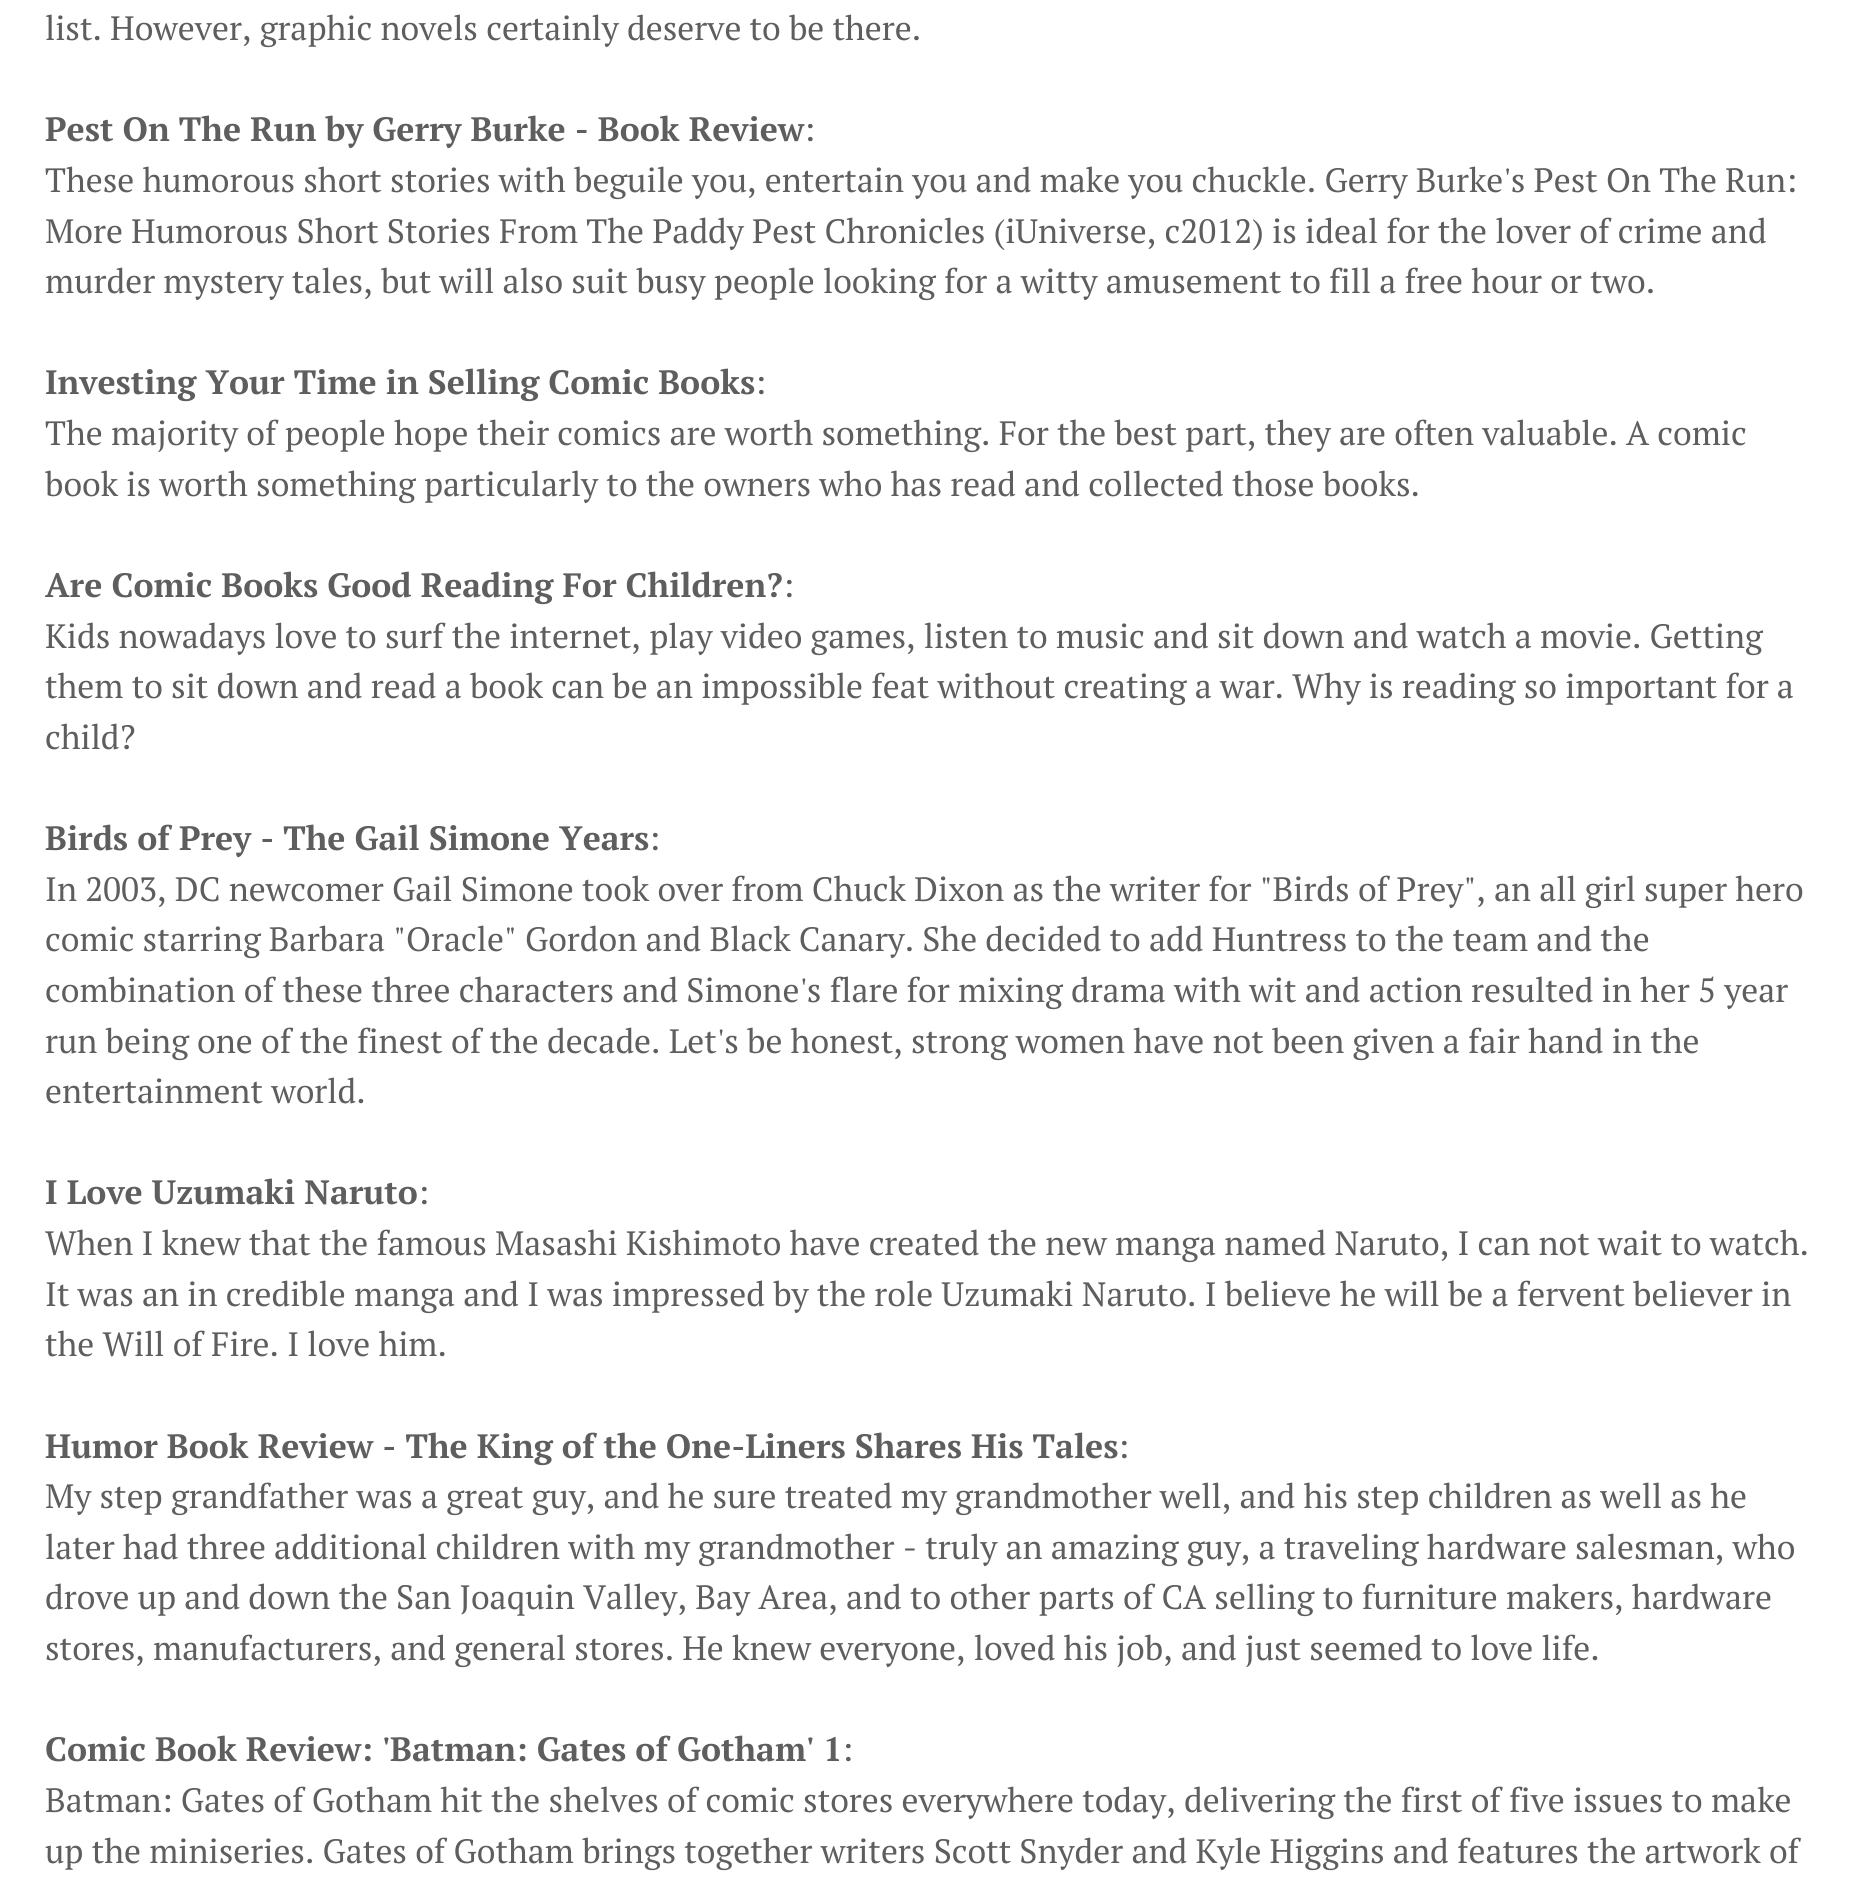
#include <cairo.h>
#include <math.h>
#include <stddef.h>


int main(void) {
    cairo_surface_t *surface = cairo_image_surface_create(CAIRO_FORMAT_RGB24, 1854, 1887);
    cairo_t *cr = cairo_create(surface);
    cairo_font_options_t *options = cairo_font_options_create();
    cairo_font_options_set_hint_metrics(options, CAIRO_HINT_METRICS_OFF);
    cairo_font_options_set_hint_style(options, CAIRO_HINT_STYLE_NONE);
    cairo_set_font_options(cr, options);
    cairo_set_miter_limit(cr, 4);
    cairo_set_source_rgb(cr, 1, 1, 1);
    cairo_paint(cr);
    cairo_select_font_face(cr, "PT Serif", CAIRO_FONT_SLANT_NORMAL, CAIRO_FONT_WEIGHT_NORMAL);
    cairo_set_font_size(cr, 33.75);
    cairo_set_source_rgb(cr, 0.369, 0.369, 0.369);
    cairo_move_to(cr, 45, 40);
    cairo_show_text(cr, "list. However, graphic novels certainly deserve to be there.");
    cairo_select_font_face(cr, "PT Serif", CAIRO_FONT_SLANT_NORMAL, CAIRO_FONT_WEIGHT_BOLD);
    cairo_move_to(cr, 45, 141);
    cairo_show_text(cr, "Pest On The Run by Gerry Burke - Book Review");
    cairo_select_font_face(cr, "PT Serif", CAIRO_FONT_SLANT_NORMAL, CAIRO_FONT_WEIGHT_NORMAL);
    cairo_move_to(cr, 804, 141);
    cairo_show_text(cr, ":");
    cairo_move_to(cr, 45, 192);
    cairo_show_text(cr, "These humorous short stories with beguile you, entertain you and make you chuckle. Gerry Burke's Pest On The Run:");
    cairo_move_to(cr, 45, 243);
    cairo_show_text(cr, "More Humorous Short Stories From The Paddy Pest Chronicles (iUniverse, c2012) is ideal for the lover of crime and");
    cairo_move_to(cr, 45, 293);
    cairo_show_text(cr, "murder mystery tales, but will also suit busy people looking for a witty amusement to fill a free hour or two.");
    cairo_select_font_face(cr, "PT Serif", CAIRO_FONT_SLANT_NORMAL, CAIRO_FONT_WEIGHT_BOLD);
    cairo_move_to(cr, 45, 394);
    cairo_show_text(cr, "Investing Your Time in Selling Comic Books");
    cairo_select_font_face(cr, "PT Serif", CAIRO_FONT_SLANT_NORMAL, CAIRO_FONT_WEIGHT_NORMAL);
    cairo_move_to(cr, 755, 394);
    cairo_show_text(cr, ":");
    cairo_move_to(cr, 45, 445);
    cairo_show_text(cr, "The majority of people hope their comics are worth something. For the best part, they are often valuable. A comic");
    cairo_move_to(cr, 45, 496);
    cairo_show_text(cr, "book is worth something particularly to the owners who has read and collected those books.");
    cairo_select_font_face(cr, "PT Serif", CAIRO_FONT_SLANT_NORMAL, CAIRO_FONT_WEIGHT_BOLD);
    cairo_move_to(cr, 45, 597);
    cairo_show_text(cr, "Are Comic Books Good Reading For Children?");
    cairo_select_font_face(cr, "PT Serif", CAIRO_FONT_SLANT_NORMAL, CAIRO_FONT_WEIGHT_NORMAL);
    cairo_move_to(cr, 783, 597);
    cairo_show_text(cr, ":");
    cairo_move_to(cr, 45, 648);
    cairo_show_text(cr, "Kids nowadays love to surf the internet, play video games, listen to music and sit down and watch a movie. Getting");
    cairo_move_to(cr, 45, 698);
    cairo_show_text(cr, "them to sit down and read a book can be an impossible feat without creating a war. Why is reading so important for a");
    cairo_move_to(cr, 45, 749);
    cairo_show_text(cr, "child?");
    cairo_select_font_face(cr, "PT Serif", CAIRO_FONT_SLANT_NORMAL, CAIRO_FONT_WEIGHT_BOLD);
    cairo_move_to(cr, 45, 850);
    cairo_show_text(cr, "Birds of Prey - The Gail Simone Years");
    cairo_select_font_face(cr, "PT Serif", CAIRO_FONT_SLANT_NORMAL, CAIRO_FONT_WEIGHT_NORMAL);
    cairo_move_to(cr, 649, 850);
    cairo_show_text(cr, ":");
    cairo_move_to(cr, 45, 901);
    cairo_show_text(cr, "In 2003, DC newcomer Gail Simone took over from Chuck Dixon as the writer for \"Birds of Prey\", an all girl super hero");
    cairo_move_to(cr, 45, 951);
    cairo_show_text(cr, "comic starring Barbara \"Oracle\" Gordon and Black Canary. She decided to add Huntress to the team and the");
    cairo_move_to(cr, 45, 1002);
    cairo_show_text(cr, "combination of these three characters and Simone's flare for mixing drama with wit and action resulted in her 5 year");
    cairo_move_to(cr, 45, 1053);
    cairo_show_text(cr, "run being one of the finest of the decade. Let's be honest, strong women have not been given a fair hand in the");
    cairo_move_to(cr, 45, 1103);
    cairo_show_text(cr, "entertainment world.");
    cairo_select_font_face(cr, "PT Serif", CAIRO_FONT_SLANT_NORMAL, CAIRO_FONT_WEIGHT_BOLD);
    cairo_move_to(cr, 45, 1204);
    cairo_show_text(cr, "I Love Uzumaki Naruto");
    cairo_select_font_face(cr, "PT Serif", CAIRO_FONT_SLANT_NORMAL, CAIRO_FONT_WEIGHT_NORMAL);
    cairo_move_to(cr, 418, 1204);
    cairo_show_text(cr, ":");
    cairo_move_to(cr, 45, 1255);
    cairo_show_text(cr, "When I knew that the famous Masashi Kishimoto have created the new manga named Naruto, I can not wait to watch.");
    cairo_move_to(cr, 45, 1306);
    cairo_show_text(cr, "It was an in credible manga and I was impressed by the role Uzumaki Naruto. I believe he will be a fervent believer in");
    cairo_move_to(cr, 45, 1356);
    cairo_show_text(cr, "the Will of Fire. I love him.");
    cairo_select_font_face(cr, "PT Serif", CAIRO_FONT_SLANT_NORMAL, CAIRO_FONT_WEIGHT_BOLD);
    cairo_move_to(cr, 45, 1458);
    cairo_show_text(cr, "Humor Book Review - The King of the One-Liners Shares His Tales");
    cairo_select_font_face(cr, "PT Serif", CAIRO_FONT_SLANT_NORMAL, CAIRO_FONT_WEIGHT_NORMAL);
    cairo_move_to(cr, 1118, 1458);
    cairo_show_text(cr, ":");
    cairo_move_to(cr, 45, 1508);
    cairo_show_text(cr, "My step grandfather was a great guy, and he sure treated my grandmother well, and his step children as well as he");
    cairo_move_to(cr, 45, 1559);
    cairo_show_text(cr, "later had three additional children with my grandmother - truly an amazing guy, a traveling hardware salesman, who");
    cairo_move_to(cr, 45, 1609);
    cairo_show_text(cr, "drove up and down the San Joaquin Valley, Bay Area, and to other parts of CA selling to furniture makers, hardware");
    cairo_move_to(cr, 45, 1660);
    cairo_show_text(cr, "stores, manufacturers, and general stores. He knew everyone, loved his job, and just seemed to love life.");
    cairo_select_font_face(cr, "PT Serif", CAIRO_FONT_SLANT_NORMAL, CAIRO_FONT_WEIGHT_BOLD);
    cairo_move_to(cr, 45, 1761);
    cairo_show_text(cr, "Comic Book Review: 'Batman: Gates of Gotham' 1");
    cairo_select_font_face(cr, "PT Serif", CAIRO_FONT_SLANT_NORMAL, CAIRO_FONT_WEIGHT_NORMAL);
    cairo_move_to(cr, 842, 1761);
    cairo_show_text(cr, ":");
    cairo_move_to(cr, 45, 1812);
    cairo_show_text(cr, "Batman: Gates of Gotham hit the shelves of comic stores everywhere today, delivering the first of five issues to make");
    cairo_move_to(cr, 45, 1863);
    cairo_show_text(cr, "up the miniseries. Gates of Gotham brings together writers Scott Snyder and Kyle Higgins and features the artwork of");
    cairo_surface_write_to_png(surface, "page.png");
    cairo_font_options_destroy(options);
    cairo_destroy(cr);
    cairo_surface_destroy(surface);
    return 0;
}
